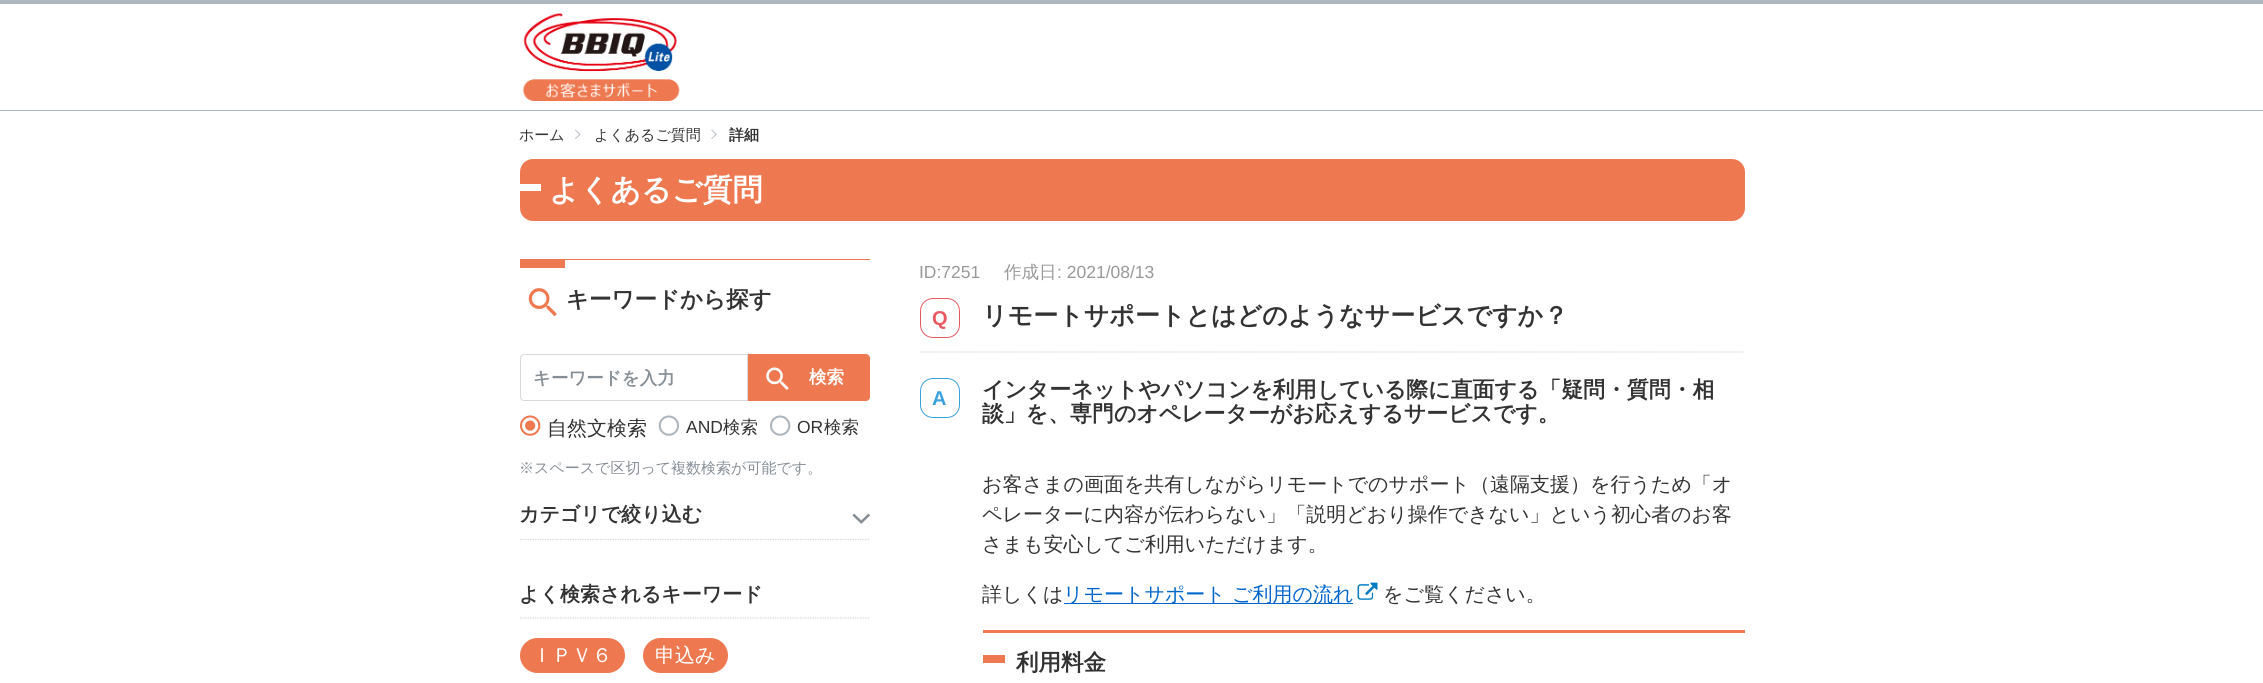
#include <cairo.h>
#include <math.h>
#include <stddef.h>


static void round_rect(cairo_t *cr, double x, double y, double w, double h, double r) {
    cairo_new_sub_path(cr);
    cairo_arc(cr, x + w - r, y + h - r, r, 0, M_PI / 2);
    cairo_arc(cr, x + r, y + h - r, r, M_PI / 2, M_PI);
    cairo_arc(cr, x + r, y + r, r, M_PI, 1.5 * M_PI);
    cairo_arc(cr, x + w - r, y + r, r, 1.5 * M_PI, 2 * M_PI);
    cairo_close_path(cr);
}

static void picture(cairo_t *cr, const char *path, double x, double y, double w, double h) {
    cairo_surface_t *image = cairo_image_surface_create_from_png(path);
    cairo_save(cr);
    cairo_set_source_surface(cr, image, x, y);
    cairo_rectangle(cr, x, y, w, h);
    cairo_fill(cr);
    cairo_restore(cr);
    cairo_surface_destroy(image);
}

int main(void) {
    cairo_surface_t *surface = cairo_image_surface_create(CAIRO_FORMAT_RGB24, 2263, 683);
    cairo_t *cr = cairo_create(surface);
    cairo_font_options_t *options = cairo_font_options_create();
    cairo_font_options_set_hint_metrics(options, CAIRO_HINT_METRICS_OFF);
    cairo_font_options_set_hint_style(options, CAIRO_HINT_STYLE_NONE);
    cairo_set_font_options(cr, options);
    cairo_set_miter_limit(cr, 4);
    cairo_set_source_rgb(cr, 1, 1, 1);
    cairo_paint(cr);
    cairo_set_source_rgb(cr, 0.678, 0.71, 0.741);
    cairo_rectangle(cr, 0, 0, 2263, 4);
    cairo_fill(cr);
    cairo_rectangle(cr, 0, 110, 2263, 1);
    cairo_fill(cr);
    picture(cr, "img1.png", 522, 12, 158, 89);
    cairo_select_font_face(cr, "WenQuanYi Zen Hei Medium", CAIRO_FONT_SLANT_NORMAL, CAIRO_FONT_WEIGHT_NORMAL);
    cairo_set_font_size(cr, 15);
    cairo_set_source_rgb(cr, 0.2, 0.2, 0.2);
    cairo_move_to(cr, 519, 140);
    cairo_show_text(cr, "ホーム");
    picture(cr, "img2.png", 575, 129, 6, 10);
    cairo_move_to(cr, 594, 140);
    cairo_show_text(cr, "よくあるご質問");
    picture(cr, "img3.png", 711, 129, 6, 10);
    cairo_select_font_face(cr, "WenQuanYi Zen Hei", CAIRO_FONT_SLANT_NORMAL, CAIRO_FONT_WEIGHT_BOLD);
    cairo_move_to(cr, 729, 140);
    cairo_show_text(cr, "詳細");
    cairo_set_source_rgb(cr, 0.933, 0.475, 0.318);
    round_rect(cr, 520, 159, 1225, 62, 13);
    cairo_fill(cr);
    cairo_set_source_rgb(cr, 1, 1, 1);
    cairo_rectangle(cr, 520, 184, 21, 7);
    cairo_fill(cr);
    cairo_set_font_size(cr, 30);
    cairo_move_to(cr, 549, 200);
    cairo_show_text(cr, "よくあるご質問");
    cairo_set_source_rgb(cr, 0.933, 0.475, 0.318);
    cairo_rectangle(cr, 520, 259, 350, 1);
    cairo_fill(cr);
    picture(cr, "img4.png", 528, 288, 29, 29);
    cairo_rectangle(cr, 520, 260, 45, 8);
    cairo_fill(cr);
    cairo_set_font_size(cr, 22.5);
    cairo_set_source_rgb(cr, 0.2, 0.2, 0.2);
    cairo_move_to(cr, 566, 307);
    cairo_show_text(cr, "キーワードから探す");
    cairo_new_path(cr);
    cairo_move_to(cr, 524, 354.5);
    cairo_line_to(cr, 747.5, 354.5);
    cairo_line_to(cr, 747.5, 400.5);
    cairo_line_to(cr, 524, 400.5);
    cairo_curve_to(cr, 522, 400.5, 520.5, 399, 520.5, 397);
    cairo_line_to(cr, 520.5, 358);
    cairo_curve_to(cr, 520.5, 356, 522, 354.5, 524, 354.5);
    cairo_close_path(cr);
    cairo_set_source_rgb(cr, 0.851, 0.851, 0.851);
    cairo_set_line_width(cr, 1);
    cairo_stroke(cr);
    cairo_set_font_size(cr, 17.5);
    cairo_set_source_rgb(cr, 0.525, 0.557, 0.588);
    cairo_move_to(cr, 533, 384);
    cairo_show_text(cr, "キーワードを入力");
    cairo_set_source_rgb(cr, 0.933, 0.475, 0.318);
    cairo_new_path(cr);
    cairo_move_to(cr, 748, 354);
    cairo_line_to(cr, 866, 354);
    cairo_curve_to(cr, 868, 354, 870, 356, 870, 358);
    cairo_line_to(cr, 870, 397);
    cairo_curve_to(cr, 870, 399, 868, 401, 866, 401);
    cairo_line_to(cr, 748, 401);
    cairo_close_path(cr);
    cairo_fill(cr);
    picture(cr, "img5.png", 766, 367, 23, 23);
    cairo_set_source_rgb(cr, 1, 1, 1);
    cairo_move_to(cr, 809, 383);
    cairo_show_text(cr, "検索");
    picture(cr, "img6.png", 520, 415, 21, 21);
    cairo_select_font_face(cr, "WenQuanYi Zen Hei Medium", CAIRO_FONT_SLANT_NORMAL, CAIRO_FONT_WEIGHT_NORMAL);
    cairo_set_font_size(cr, 20);
    cairo_set_source_rgb(cr, 0.2, 0.2, 0.2);
    cairo_move_to(cr, 547, 435);
    cairo_show_text(cr, "自然文検索");
    picture(cr, "img7.png", 658, 415, 21, 21);
    cairo_select_font_face(cr, "Liberation Sans", CAIRO_FONT_SLANT_NORMAL, CAIRO_FONT_WEIGHT_NORMAL);
    cairo_set_font_size(cr, 17.5);
    cairo_move_to(cr, 686, 433);
    cairo_show_text(cr, "AND");
    cairo_select_font_face(cr, "WenQuanYi Zen Hei Medium", CAIRO_FONT_SLANT_NORMAL, CAIRO_FONT_WEIGHT_NORMAL);
    cairo_move_to(cr, 723, 433);
    cairo_show_text(cr, "検索");
    picture(cr, "img8.png", 770, 415, 21, 21);
    cairo_select_font_face(cr, "Liberation Sans", CAIRO_FONT_SLANT_NORMAL, CAIRO_FONT_WEIGHT_NORMAL);
    cairo_move_to(cr, 797, 433);
    cairo_show_text(cr, "OR");
    cairo_select_font_face(cr, "WenQuanYi Zen Hei Medium", CAIRO_FONT_SLANT_NORMAL, CAIRO_FONT_WEIGHT_NORMAL);
    cairo_move_to(cr, 824, 433);
    cairo_show_text(cr, "検索");
    cairo_set_font_size(cr, 15);
    cairo_set_source_rgb(cr, 0.525, 0.557, 0.588);
    cairo_move_to(cr, 519, 473);
    cairo_show_text(cr, "※スペースで区切って複数検索が可能です。");
    cairo_new_path(cr);
    cairo_move_to(cr, 520, 539.5);
    cairo_line_to(cr, 870, 539.5);
    cairo_set_source_rgb(cr, 0.808, 0.831, 0.855);
    cairo_set_line_width(cr, 1.2);
    cairo_set_dash(cr, (double[]){1.25, 1.25}, 2, 0);
    cairo_stroke(cr);
    cairo_select_font_face(cr, "WenQuanYi Zen Hei", CAIRO_FONT_SLANT_NORMAL, CAIRO_FONT_WEIGHT_BOLD);
    cairo_set_font_size(cr, 20);
    cairo_set_source_rgb(cr, 0.2, 0.2, 0.2);
    cairo_move_to(cr, 519, 521);
    cairo_show_text(cr, "カテゴリで絞り込む");
    picture(cr, "img9.png", 852, 513, 18, 11);
    cairo_new_path(cr);
    cairo_move_to(cr, 520, 618);
    cairo_line_to(cr, 870, 618);
    cairo_set_source_rgb(cr, 0.808, 0.831, 0.855);
    cairo_stroke(cr);
    cairo_set_source_rgb(cr, 0.2, 0.2, 0.2);
    cairo_move_to(cr, 519, 601);
    cairo_show_text(cr, "よく検索されるキーワード");
    cairo_set_source_rgb(cr, 0.933, 0.475, 0.318);
    round_rect(cr, 520, 638, 105, 35, 17.5);
    cairo_fill(cr);
    cairo_select_font_face(cr, "WenQuanYi Zen Hei Medium", CAIRO_FONT_SLANT_NORMAL, CAIRO_FONT_WEIGHT_NORMAL);
    cairo_set_source_rgb(cr, 1, 1, 1);
    cairo_move_to(cr, 532, 662);
    cairo_show_text(cr, "ＩＰＶ６");
    cairo_set_source_rgb(cr, 0.933, 0.475, 0.318);
    round_rect(cr, 643, 638, 85, 35, 17.5);
    cairo_fill(cr);
    cairo_set_source_rgb(cr, 1, 1, 1);
    cairo_move_to(cr, 655, 662);
    cairo_show_text(cr, "申込み");
    cairo_select_font_face(cr, "Liberation Sans", CAIRO_FONT_SLANT_NORMAL, CAIRO_FONT_WEIGHT_NORMAL);
    cairo_set_font_size(cr, 17.5);
    cairo_set_source_rgb(cr, 0.6, 0.6, 0.6);
    cairo_move_to(cr, 919, 278);
    cairo_show_text(cr, "ID:7251");
    cairo_select_font_face(cr, "WenQuanYi Zen Hei Medium", CAIRO_FONT_SLANT_NORMAL, CAIRO_FONT_WEIGHT_NORMAL);
    cairo_move_to(cr, 1004, 278);
    cairo_show_text(cr, "作成日");
    cairo_select_font_face(cr, "Liberation Sans", CAIRO_FONT_SLANT_NORMAL, CAIRO_FONT_WEIGHT_NORMAL);
    cairo_move_to(cr, 1057, 278);
    cairo_show_text(cr, ": 2021/08/13");
    cairo_new_path(cr);
    cairo_move_to(cr, 920, 352);
    cairo_line_to(cr, 1745, 352);
    cairo_set_source_rgb(cr, 0.808, 0.831, 0.855);
    cairo_stroke(cr);
    round_rect(cr, 920.5, 298.5, 39, 39, 12.5);
    cairo_set_source_rgb(cr, 0.914, 0.349, 0.38);
    cairo_set_line_width(cr, 1);
    cairo_set_dash(cr, NULL, 0, 0);
    cairo_stroke(cr);
    cairo_select_font_face(cr, "Liberation Sans", CAIRO_FONT_SLANT_NORMAL, CAIRO_FONT_WEIGHT_BOLD);
    cairo_set_font_size(cr, 20);
    cairo_move_to(cr, 932, 325);
    cairo_show_text(cr, "Q");
    cairo_select_font_face(cr, "WenQuanYi Zen Hei", CAIRO_FONT_SLANT_NORMAL, CAIRO_FONT_WEIGHT_BOLD);
    cairo_set_font_size(cr, 25);
    cairo_set_source_rgb(cr, 0.2, 0.2, 0.2);
    cairo_move_to(cr, 982, 324);
    cairo_show_text(cr, "リモートサポートとはどのようなサービスですか？");
    round_rect(cr, 920.5, 378.5, 39, 39, 12.5);
    cairo_set_source_rgb(cr, 0.227, 0.635, 0.871);
    cairo_stroke(cr);
    cairo_select_font_face(cr, "Liberation Sans", CAIRO_FONT_SLANT_NORMAL, CAIRO_FONT_WEIGHT_BOLD);
    cairo_set_font_size(cr, 20);
    cairo_move_to(cr, 932, 405);
    cairo_show_text(cr, "A");
    cairo_select_font_face(cr, "WenQuanYi Zen Hei", CAIRO_FONT_SLANT_NORMAL, CAIRO_FONT_WEIGHT_BOLD);
    cairo_set_font_size(cr, 21.9);
    cairo_set_source_rgb(cr, 0.2, 0.2, 0.2);
    cairo_move_to(cr, 982, 397);
    cairo_show_text(cr, "インターネットやパソコンを利用している際に直面する「疑問・質問・相");
    cairo_move_to(cr, 982, 421);
    cairo_show_text(cr, "談」を、専門のオペレーターがお応えするサービスです。");
    cairo_select_font_face(cr, "WenQuanYi Zen Hei Medium", CAIRO_FONT_SLANT_NORMAL, CAIRO_FONT_WEIGHT_NORMAL);
    cairo_set_font_size(cr, 20);
    cairo_move_to(cr, 982, 491);
    cairo_show_text(cr, "お客さまの画面を共有しながらリモートでのサポート（遠隔支援）を行うため「オ");
    cairo_move_to(cr, 982, 521);
    cairo_show_text(cr, "ペレーターに内容が伝わらない」「説明どおり操作できない」という初心者のお客");
    cairo_move_to(cr, 982, 551);
    cairo_show_text(cr, "さまも安心してご利用いただけます。");
    cairo_move_to(cr, 982, 601);
    cairo_show_text(cr, "詳しくは");
    cairo_set_source_rgb(cr, 0, 0.4, 0.796);
    cairo_rectangle(cr, 1064, 603, 289, 1);
    cairo_fill(cr);
    cairo_move_to(cr, 1063, 601);
    cairo_show_text(cr, "リモートサポート");
    cairo_move_to(cr, 1232, 601);
    cairo_show_text(cr, "ご利用の流れ");
    picture(cr, "img10.png", 1357, 582, 21, 18);
    cairo_set_source_rgb(cr, 0.2, 0.2, 0.2);
    cairo_move_to(cr, 1383, 601);
    cairo_show_text(cr, "をご覧ください。");
    cairo_set_source_rgb(cr, 0.933, 0.475, 0.318);
    cairo_rectangle(cr, 983, 630, 762, 3);
    cairo_fill(cr);
    cairo_rectangle(cr, 983, 655, 22, 8);
    cairo_fill(cr);
    cairo_select_font_face(cr, "WenQuanYi Zen Hei", CAIRO_FONT_SLANT_NORMAL, CAIRO_FONT_WEIGHT_BOLD);
    cairo_set_font_size(cr, 22.5);
    cairo_set_source_rgb(cr, 0.2, 0.2, 0.2);
    cairo_move_to(cr, 1016, 670);
    cairo_show_text(cr, "利用料金");
    cairo_surface_write_to_png(surface, "page.png");
    cairo_font_options_destroy(options);
    cairo_destroy(cr);
    cairo_surface_destroy(surface);
    return 0;
}
